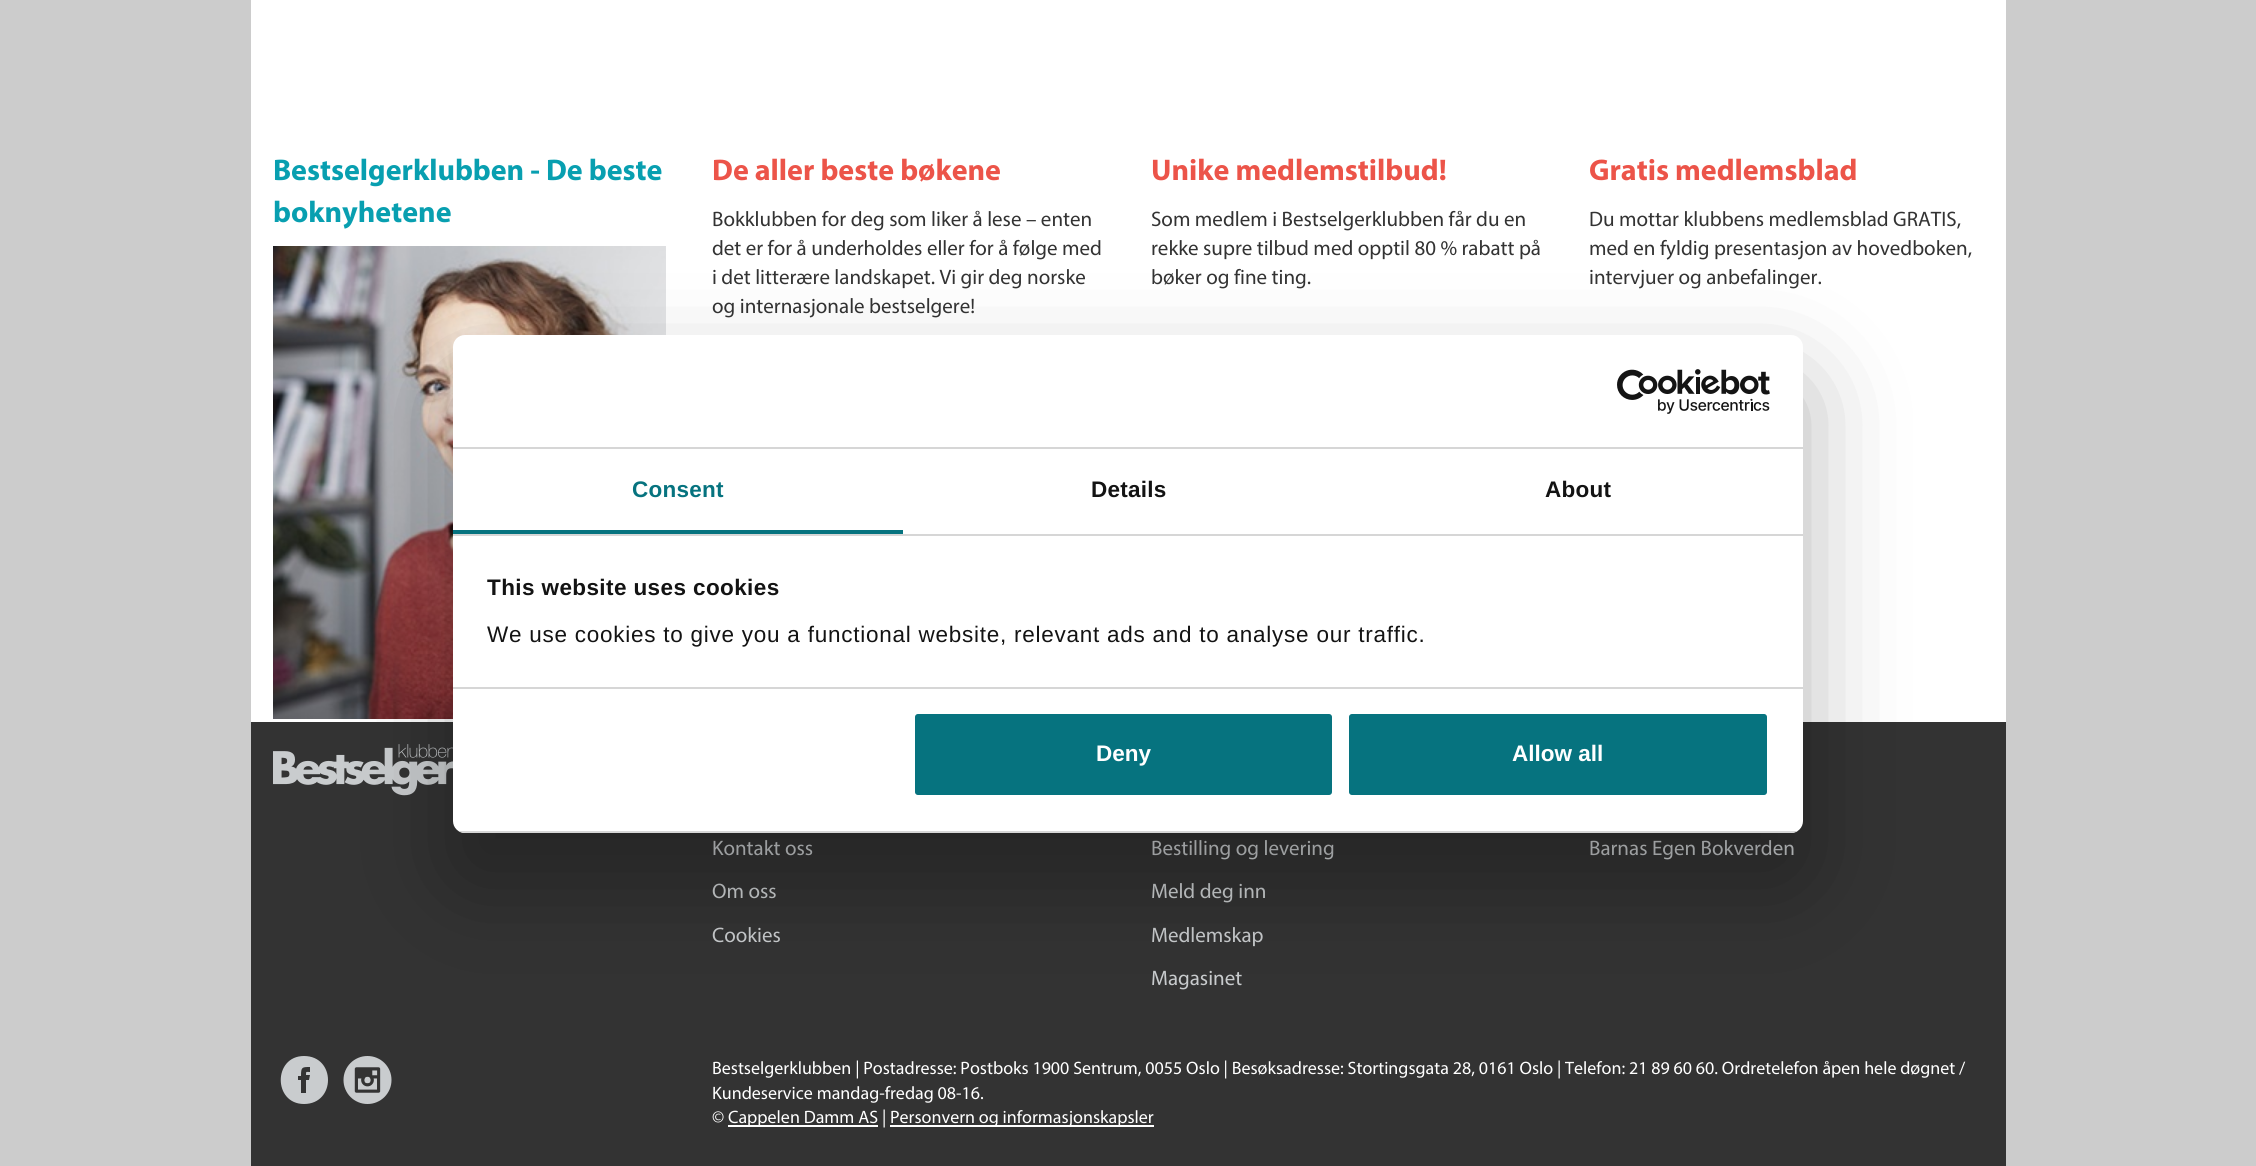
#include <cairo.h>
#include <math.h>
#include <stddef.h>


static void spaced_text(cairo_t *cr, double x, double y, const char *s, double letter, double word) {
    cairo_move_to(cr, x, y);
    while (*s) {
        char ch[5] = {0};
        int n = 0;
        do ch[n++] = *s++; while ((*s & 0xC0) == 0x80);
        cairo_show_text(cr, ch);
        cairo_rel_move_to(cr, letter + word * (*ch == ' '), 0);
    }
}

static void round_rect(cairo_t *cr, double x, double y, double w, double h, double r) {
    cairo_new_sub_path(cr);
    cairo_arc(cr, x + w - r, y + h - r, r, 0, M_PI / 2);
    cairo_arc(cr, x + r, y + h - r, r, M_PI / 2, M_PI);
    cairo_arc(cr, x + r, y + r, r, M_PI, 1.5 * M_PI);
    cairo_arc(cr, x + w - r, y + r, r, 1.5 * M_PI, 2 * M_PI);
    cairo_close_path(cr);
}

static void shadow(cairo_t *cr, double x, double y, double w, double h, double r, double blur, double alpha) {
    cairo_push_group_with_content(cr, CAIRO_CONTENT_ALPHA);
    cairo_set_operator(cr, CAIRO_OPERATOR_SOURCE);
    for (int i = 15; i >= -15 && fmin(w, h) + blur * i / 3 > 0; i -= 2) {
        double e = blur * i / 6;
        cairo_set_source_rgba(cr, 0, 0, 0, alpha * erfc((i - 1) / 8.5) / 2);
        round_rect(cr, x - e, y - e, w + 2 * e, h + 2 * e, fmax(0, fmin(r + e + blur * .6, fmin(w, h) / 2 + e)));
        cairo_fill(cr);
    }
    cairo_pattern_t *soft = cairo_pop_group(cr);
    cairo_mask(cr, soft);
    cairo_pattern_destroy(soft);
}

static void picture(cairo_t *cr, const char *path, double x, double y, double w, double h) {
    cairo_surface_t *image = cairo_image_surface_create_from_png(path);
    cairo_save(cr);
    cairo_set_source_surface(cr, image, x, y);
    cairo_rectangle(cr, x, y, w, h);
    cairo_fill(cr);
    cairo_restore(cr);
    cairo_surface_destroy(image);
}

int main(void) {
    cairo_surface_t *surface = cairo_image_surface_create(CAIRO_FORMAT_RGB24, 2256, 1166);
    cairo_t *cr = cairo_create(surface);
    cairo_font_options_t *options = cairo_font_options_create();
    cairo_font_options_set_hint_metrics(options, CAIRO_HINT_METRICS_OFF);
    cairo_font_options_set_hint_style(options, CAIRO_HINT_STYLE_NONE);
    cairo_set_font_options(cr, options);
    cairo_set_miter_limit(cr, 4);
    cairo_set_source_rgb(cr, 0.8, 0.8, 0.8);
    cairo_paint(cr);
    cairo_set_source_rgb(cr, 1, 1, 1);
    cairo_rectangle(cr, 251, 0, 1755, 722);
    cairo_fill(cr);
    cairo_select_font_face(cr, "Myriad", CAIRO_FONT_SLANT_NORMAL, CAIRO_FONT_WEIGHT_BOLD);
    cairo_set_font_size(cr, 30);
    cairo_set_source_rgb(cr, 0.035, 0.624, 0.69);
    cairo_move_to(cr, 273, 180);
    cairo_show_text(cr, "Bestselgerklubben - De beste");
    cairo_move_to(cr, 273, 222);
    cairo_show_text(cr, "boknyhetene");
    picture(cr, "img1.png", 273, 246, 393, 473);
    cairo_set_source_rgb(cr, 0.922, 0.329, 0.286);
    cairo_move_to(cr, 712, 180);
    cairo_show_text(cr, "De aller beste bøkene");
    cairo_select_font_face(cr, "Myriad", CAIRO_FONT_SLANT_NORMAL, CAIRO_FONT_WEIGHT_NORMAL);
    cairo_set_font_size(cr, 21);
    cairo_set_source_rgb(cr, 0.2, 0.2, 0.2);
    cairo_move_to(cr, 712, 226);
    cairo_show_text(cr, "Bokklubben for deg som liker å lese – enten");
    cairo_move_to(cr, 712, 255);
    cairo_show_text(cr, "det er for å underholdes eller for å følge med");
    cairo_move_to(cr, 712, 284);
    cairo_show_text(cr, "i det litterære landskapet. Vi gir deg norske");
    cairo_move_to(cr, 712, 313);
    cairo_show_text(cr, "og internasjonale bestselgere!");
    cairo_select_font_face(cr, "Myriad", CAIRO_FONT_SLANT_NORMAL, CAIRO_FONT_WEIGHT_BOLD);
    cairo_set_font_size(cr, 30);
    cairo_set_source_rgb(cr, 0.922, 0.329, 0.286);
    cairo_move_to(cr, 1151, 180);
    cairo_show_text(cr, "Unike medlemstilbud!");
    cairo_select_font_face(cr, "Myriad", CAIRO_FONT_SLANT_NORMAL, CAIRO_FONT_WEIGHT_NORMAL);
    cairo_set_font_size(cr, 21);
    cairo_set_source_rgb(cr, 0.2, 0.2, 0.2);
    cairo_move_to(cr, 1151, 226);
    cairo_show_text(cr, "Som medlem i Bestselgerklubben får du en");
    cairo_move_to(cr, 1151, 255);
    cairo_show_text(cr, "rekke supre tilbud med opptil 80 % rabatt på");
    cairo_move_to(cr, 1151, 284);
    cairo_show_text(cr, "bøker og fine ting.");
    cairo_select_font_face(cr, "Myriad", CAIRO_FONT_SLANT_NORMAL, CAIRO_FONT_WEIGHT_BOLD);
    cairo_set_font_size(cr, 30);
    cairo_set_source_rgb(cr, 0.922, 0.329, 0.286);
    cairo_move_to(cr, 1589, 180);
    cairo_show_text(cr, "Gratis medlemsblad");
    cairo_select_font_face(cr, "Myriad", CAIRO_FONT_SLANT_NORMAL, CAIRO_FONT_WEIGHT_NORMAL);
    cairo_set_font_size(cr, 21);
    cairo_set_source_rgb(cr, 0.2, 0.2, 0.2);
    cairo_move_to(cr, 1589, 226);
    cairo_show_text(cr, "Du mottar klubbens medlemsblad GRATIS,");
    cairo_move_to(cr, 1589, 255);
    cairo_show_text(cr, "med en fyldig presentasjon av hovedboken,");
    cairo_move_to(cr, 1589, 284);
    cairo_show_text(cr, "intervjuer og anbefalinger.");
    cairo_rectangle(cr, 251, 722, 1755, 444);
    cairo_fill(cr);
    picture(cr, "img2.png", 273, 744, 180, 52);
    cairo_set_source_rgb(cr, 0.788, 0.8, 0.808);
    cairo_move_to(cr, 712, 855);
    cairo_show_text(cr, "Kontakt oss");
    cairo_move_to(cr, 712, 898);
    cairo_show_text(cr, "Om oss");
    cairo_move_to(cr, 712, 942);
    cairo_show_text(cr, "Cookies");
    cairo_move_to(cr, 1151, 855);
    cairo_show_text(cr, "Bestilling og levering");
    cairo_move_to(cr, 1151, 898);
    cairo_show_text(cr, "Meld deg inn");
    cairo_move_to(cr, 1151, 942);
    cairo_show_text(cr, "Medlemskap");
    cairo_move_to(cr, 1151, 985);
    cairo_show_text(cr, "Magasinet");
    cairo_move_to(cr, 1589, 855);
    cairo_show_text(cr, "Barnas Egen Bokverden");
    cairo_new_path(cr);
    cairo_move_to(cr, 304, 1056);
    cairo_curve_to(cr, 273, 1056, 273, 1104, 304, 1104);
    cairo_curve_to(cr, 336, 1104, 336, 1056, 304, 1056);
    cairo_close_path(cr);
    cairo_move_to(cr, 309, 1080);
    cairo_line_to(cr, 306, 1080);
    cairo_line_to(cr, 306, 1093);
    cairo_line_to(cr, 301, 1093);
    cairo_line_to(cr, 301, 1080);
    cairo_line_to(cr, 298, 1080);
    cairo_line_to(cr, 298, 1076);
    cairo_line_to(cr, 301, 1076);
    cairo_curve_to(cr, 301, 1067, 302, 1067, 310, 1067);
    cairo_line_to(cr, 310, 1072);
    cairo_curve_to(cr, 306, 1072, 306, 1071, 306, 1075);
    cairo_line_to(cr, 310, 1075);
    cairo_close_path(cr);
    cairo_fill(cr);
    picture(cr, "img3.png", 343, 1056, 49, 48);
    cairo_set_font_size(cr, 18);
    cairo_set_source_rgb(cr, 1, 1, 1);
    cairo_move_to(cr, 712, 1074);
    cairo_show_text(cr, "Bestselgerklubben | Postadresse: Postboks 1900 Sentrum, 0055 Oslo | Besøksadresse: Stortingsgata 28, 0161 Oslo | Telefon: 21 89 60 60. Ordretelefon åpen hele døgnet /");
    cairo_move_to(cr, 712, 1099);
    cairo_show_text(cr, "Kundeservice mandag-fredag 08-16.");
    cairo_move_to(cr, 712, 1123);
    cairo_show_text(cr, "©");
    cairo_rectangle(cr, 728, 1125, 150, 2);
    cairo_fill(cr);
    cairo_move_to(cr, 728, 1123);
    cairo_show_text(cr, "Cappelen Damm AS |");
    cairo_rectangle(cr, 890, 1125, 264, 2);
    cairo_fill(cr);
    cairo_move_to(cr, 890, 1123);
    cairo_show_text(cr, "Personvern og informasjonskapsler");
    cairo_set_source_rgb(cr, 0, 0, 0);
    shadow(cr, 453, 383, 1350, 498, 12, 51, 0.3);
    cairo_set_source_rgb(cr, 1, 1, 1);
    round_rect(cr, 453, 335, 1350, 498, 12);
    cairo_fill(cr);
    cairo_set_source_rgb(cr, 0.839, 0.839, 0.839);
    cairo_rectangle(cr, 453, 447, 1350, 2);
    cairo_fill(cr);
    picture(cr, "img4.png", 1617, 369, 153, 45);
    cairo_rectangle(cr, 453, 534, 1350, 2);
    cairo_fill(cr);
    cairo_set_source_rgb(cr, 0.027, 0.451, 0.498);
    cairo_rectangle(cr, 453, 530, 450, 4);
    cairo_fill(cr);
    cairo_select_font_face(cr, "Liberation Sans", CAIRO_FONT_SLANT_NORMAL, CAIRO_FONT_WEIGHT_BOLD);
    cairo_set_font_size(cr, 22.5);
    spaced_text(cr, 632, 497, "Consent", 0.25, 0);
    cairo_set_source_rgb(cr, 0.078, 0.078, 0.078);
    spaced_text(cr, 1091, 497, "Details", 0.25, 0);
    spaced_text(cr, 1545, 497, "About", 0.25, 0);
    cairo_set_source_rgb(cr, 0.839, 0.839, 0.839);
    cairo_rectangle(cr, 453, 687, 1350, 2);
    cairo_fill(cr);
    cairo_set_source_rgb(cr, 0.078, 0.078, 0.078);
    spaced_text(cr, 487, 595, "This website uses cookies", 0.4, 0);
    cairo_select_font_face(cr, "Liberation Sans", CAIRO_FONT_SLANT_NORMAL, CAIRO_FONT_WEIGHT_NORMAL);
    spaced_text(cr, 487, 642, "We use cookies to give you a functional website, relevant ads and to analyse our traffic.", 0.75, 0);
    cairo_save(cr);
    round_rect(cr, 453, 335, 1350, 498, 12);
    cairo_clip(cr);
    cairo_set_source_rgb(cr, 0.839, 0.839, 0.839);
    cairo_rectangle(cr, 453, 831, 1350, 2);
    cairo_fill(cr);
    cairo_restore(cr);
    cairo_set_source_rgb(cr, 0.027, 0.451, 0.498);
    round_rect(cr, 913.5, 712.5, 420, 84, 4.5);
    cairo_fill_preserve(cr);
    cairo_set_source_rgb(cr, 1, 1, 1);
    cairo_set_line_width(cr, 3);
    cairo_stroke(cr);
    cairo_select_font_face(cr, "Liberation Sans", CAIRO_FONT_SLANT_NORMAL, CAIRO_FONT_WEIGHT_BOLD);
    cairo_move_to(cr, 1096, 761);
    cairo_show_text(cr, "Deny");
    cairo_set_source_rgb(cr, 0.027, 0.451, 0.498);
    round_rect(cr, 1347.5, 712.5, 421, 84, 4.5);
    cairo_fill_preserve(cr);
    cairo_set_source_rgb(cr, 1, 1, 1);
    cairo_stroke(cr);
    cairo_move_to(cr, 1512, 761);
    cairo_show_text(cr, "Allow all");
    cairo_surface_write_to_png(surface, "page.png");
    cairo_font_options_destroy(options);
    cairo_destroy(cr);
    cairo_surface_destroy(surface);
    return 0;
}
